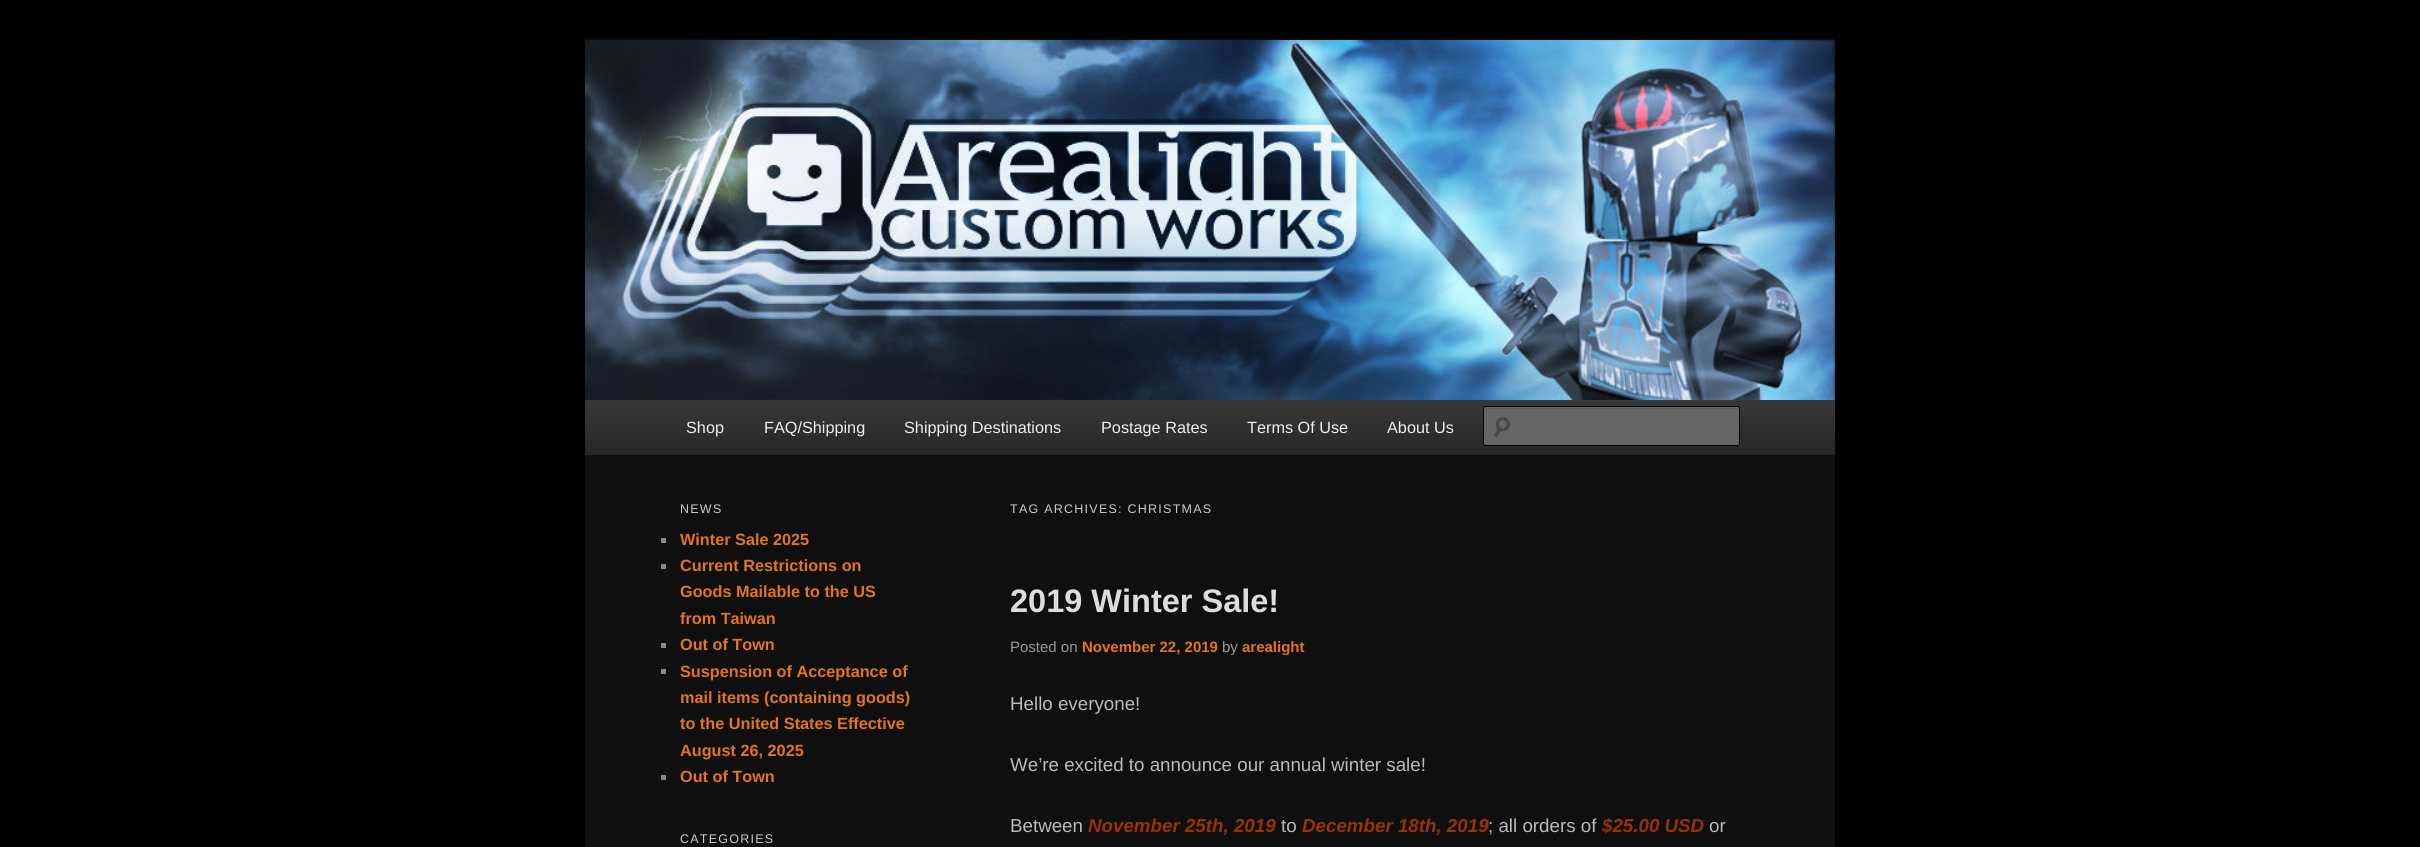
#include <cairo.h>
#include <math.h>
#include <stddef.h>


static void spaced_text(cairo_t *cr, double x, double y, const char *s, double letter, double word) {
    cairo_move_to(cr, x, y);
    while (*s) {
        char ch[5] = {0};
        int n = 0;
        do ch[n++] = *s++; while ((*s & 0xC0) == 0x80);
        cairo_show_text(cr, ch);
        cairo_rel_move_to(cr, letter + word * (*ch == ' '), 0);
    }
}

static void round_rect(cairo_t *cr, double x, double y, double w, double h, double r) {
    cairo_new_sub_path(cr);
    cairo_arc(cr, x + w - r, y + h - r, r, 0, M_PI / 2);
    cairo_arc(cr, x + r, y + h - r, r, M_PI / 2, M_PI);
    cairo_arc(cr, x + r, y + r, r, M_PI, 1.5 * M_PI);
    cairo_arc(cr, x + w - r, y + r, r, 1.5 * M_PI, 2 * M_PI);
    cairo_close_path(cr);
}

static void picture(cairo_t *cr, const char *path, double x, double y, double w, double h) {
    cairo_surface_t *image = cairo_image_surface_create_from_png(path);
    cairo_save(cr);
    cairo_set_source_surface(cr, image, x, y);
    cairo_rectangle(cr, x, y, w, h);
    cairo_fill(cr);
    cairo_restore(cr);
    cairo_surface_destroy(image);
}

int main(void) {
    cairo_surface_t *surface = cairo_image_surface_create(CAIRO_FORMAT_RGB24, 2420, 847);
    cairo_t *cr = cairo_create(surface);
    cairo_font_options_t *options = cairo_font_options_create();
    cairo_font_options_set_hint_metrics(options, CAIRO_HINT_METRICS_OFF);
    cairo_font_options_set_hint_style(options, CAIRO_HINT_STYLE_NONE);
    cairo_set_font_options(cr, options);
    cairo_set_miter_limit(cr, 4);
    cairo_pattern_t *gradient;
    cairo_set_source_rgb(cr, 0, 0, 0);
    cairo_paint(cr);
    cairo_set_source_rgb(cr, 0.059, 0.059, 0.059);
    cairo_rectangle(cr, 585, 455, 1250, 392);
    cairo_fill(cr);
    cairo_set_source_rgb(cr, 0.039, 0.039, 0.039);
    cairo_rectangle(cr, 585, 38, 1250, 2);
    cairo_fill(cr);
    picture(cr, "img1.png", 585, 40, 1250, 360);
    gradient = cairo_pattern_create_linear(1210, 400, 1210, 454);
    cairo_pattern_add_color_stop_rgba(gradient, 0, 0.22, 0.22, 0.22, 1);
    cairo_pattern_add_color_stop_rgba(gradient, 1, 0.153, 0.153, 0.153, 1);
    cairo_set_source(cr, gradient);
    cairo_pattern_destroy(gradient);
    cairo_rectangle(cr, 585, 400, 1250, 54);
    cairo_fill(cr);
    cairo_set_source_rgb(cr, 0.133, 0.133, 0.133);
    cairo_rectangle(cr, 585, 454, 1250, 1);
    cairo_fill(cr);
    cairo_select_font_face(cr, "Liberation Sans", CAIRO_FONT_SLANT_NORMAL, CAIRO_FONT_WEIGHT_NORMAL);
    cairo_set_font_size(cr, 16.25);
    cairo_set_source_rgb(cr, 0.933, 0.933, 0.933);
    cairo_move_to(cr, 686, 433);
    cairo_show_text(cr, "Shop");
    cairo_move_to(cr, 764, 433);
    cairo_show_text(cr, "FAQ/Shipping");
    cairo_move_to(cr, 904, 433);
    cairo_show_text(cr, "Shipping Destinations");
    cairo_move_to(cr, 1101, 433);
    cairo_show_text(cr, "Postage Rates");
    cairo_move_to(cr, 1247, 433);
    cairo_show_text(cr, "Terms Of Use");
    cairo_move_to(cr, 1387, 433);
    cairo_show_text(cr, "About Us");
    cairo_set_source_rgb(cr, 0.4, 0.4, 0.4);
    round_rect(cr, 1483, 406, 257, 40, 2.5);
    cairo_fill(cr);
    picture(cr, "img2.png", 1494, 417, 16, 21);
    cairo_set_source_rgb(cr, 0.361, 0.361, 0.361);
    cairo_new_path(cr);
    cairo_move_to(cr, 1485, 409);
    cairo_line_to(cr, 1738, 409);
    cairo_line_to(cr, 1739, 410);
    cairo_line_to(cr, 1739, 408);
    cairo_line_to(cr, 1485, 408);
    cairo_curve_to(cr, 1484, 408, 1484, 409, 1484, 410);
    cairo_curve_to(cr, 1484, 409, 1484, 409, 1485, 409);
    cairo_close_path(cr);
    cairo_fill(cr);
    round_rect(cr, 1483.5, 406.5, 256, 39, 2);
    cairo_set_source_rgb(cr, 0, 0, 0);
    cairo_set_line_width(cr, 1);
    cairo_stroke(cr);
    cairo_set_font_size(cr, 12.5);
    cairo_set_source_rgb(cr, 0.8, 0.8, 0.8);
    spaced_text(cr, 680, 513, "NEWS", 1.25, 0);
    cairo_set_source_rgb(cr, 0.533, 0.533, 0.533);
    cairo_rectangle(cr, 661, 538, 5, 5);
    cairo_fill(cr);
    cairo_select_font_face(cr, "Liberation Sans", CAIRO_FONT_SLANT_NORMAL, CAIRO_FONT_WEIGHT_BOLD);
    cairo_set_font_size(cr, 16.25);
    cairo_set_source_rgb(cr, 0.894, 0.455, 0.122);
    cairo_move_to(cr, 680, 545);
    cairo_show_text(cr, "Winter Sale 2025");
    cairo_set_source_rgb(cr, 0.533, 0.533, 0.533);
    cairo_rectangle(cr, 661, 564, 5, 5);
    cairo_fill(cr);
    cairo_set_source_rgb(cr, 0.894, 0.455, 0.122);
    cairo_move_to(cr, 680, 571);
    cairo_show_text(cr, "Current Restrictions on");
    cairo_move_to(cr, 680, 597);
    cairo_show_text(cr, "Goods Mailable to the US");
    cairo_move_to(cr, 680, 624);
    cairo_show_text(cr, "from Taiwan");
    cairo_set_source_rgb(cr, 0.533, 0.533, 0.533);
    cairo_rectangle(cr, 661, 643, 5, 5);
    cairo_fill(cr);
    cairo_set_source_rgb(cr, 0.894, 0.455, 0.122);
    cairo_move_to(cr, 680, 650);
    cairo_show_text(cr, "Out of Town");
    cairo_set_source_rgb(cr, 0.533, 0.533, 0.533);
    cairo_rectangle(cr, 661, 669, 5, 5);
    cairo_fill(cr);
    cairo_set_source_rgb(cr, 0.894, 0.455, 0.122);
    cairo_move_to(cr, 680, 677);
    cairo_show_text(cr, "Suspension of Acceptance of");
    cairo_move_to(cr, 680, 703);
    cairo_show_text(cr, "mail items (containing goods)");
    cairo_move_to(cr, 680, 729);
    cairo_show_text(cr, "to the United States Effective");
    cairo_move_to(cr, 680, 756);
    cairo_show_text(cr, "August 26, 2025");
    cairo_set_source_rgb(cr, 0.533, 0.533, 0.533);
    cairo_rectangle(cr, 661, 775, 5, 5);
    cairo_fill(cr);
    cairo_set_source_rgb(cr, 0.894, 0.455, 0.122);
    cairo_move_to(cr, 680, 782);
    cairo_show_text(cr, "Out of Town");
    cairo_select_font_face(cr, "Liberation Sans", CAIRO_FONT_SLANT_NORMAL, CAIRO_FONT_WEIGHT_NORMAL);
    cairo_set_font_size(cr, 12.5);
    cairo_set_source_rgb(cr, 0.8, 0.8, 0.8);
    spaced_text(cr, 680, 843, "CATEGORIES", 1.25, 0);
    spaced_text(cr, 1010, 513, "TAG ARCHIVES: CHRISTMAS", 1.25, 0);
    cairo_select_font_face(cr, "Liberation Sans", CAIRO_FONT_SLANT_NORMAL, CAIRO_FONT_WEIGHT_BOLD);
    cairo_set_font_size(cr, 32.5);
    cairo_set_source_rgb(cr, 0.867, 0.867, 0.867);
    cairo_move_to(cr, 1010, 612);
    cairo_show_text(cr, "2019 Winter Sale!");
    cairo_select_font_face(cr, "Liberation Sans", CAIRO_FONT_SLANT_NORMAL, CAIRO_FONT_WEIGHT_NORMAL);
    cairo_set_font_size(cr, 15);
    cairo_set_source_rgb(cr, 0.6, 0.6, 0.6);
    cairo_move_to(cr, 1010, 652);
    cairo_show_text(cr, "Posted on");
    cairo_select_font_face(cr, "Liberation Sans", CAIRO_FONT_SLANT_NORMAL, CAIRO_FONT_WEIGHT_BOLD);
    cairo_set_source_rgb(cr, 0.894, 0.455, 0.122);
    cairo_move_to(cr, 1082, 652);
    cairo_show_text(cr, "November 22, 2019");
    cairo_select_font_face(cr, "Liberation Sans", CAIRO_FONT_SLANT_NORMAL, CAIRO_FONT_WEIGHT_NORMAL);
    cairo_set_source_rgb(cr, 0.6, 0.6, 0.6);
    cairo_move_to(cr, 1222, 652);
    cairo_show_text(cr, "by");
    cairo_select_font_face(cr, "Liberation Sans", CAIRO_FONT_SLANT_NORMAL, CAIRO_FONT_WEIGHT_BOLD);
    cairo_set_source_rgb(cr, 0.894, 0.455, 0.122);
    cairo_move_to(cr, 1242, 652);
    cairo_show_text(cr, "arealight");
    cairo_select_font_face(cr, "Liberation Sans", CAIRO_FONT_SLANT_NORMAL, CAIRO_FONT_WEIGHT_NORMAL);
    cairo_set_font_size(cr, 18.75);
    cairo_set_source_rgb(cr, 0.733, 0.733, 0.733);
    cairo_move_to(cr, 1010, 710);
    cairo_show_text(cr, "Hello everyone!");
    cairo_move_to(cr, 1010, 771);
    cairo_show_text(cr, "We’re excited to announce our annual winter sale!");
    cairo_move_to(cr, 1010, 832);
    cairo_show_text(cr, "Between");
    cairo_select_font_face(cr, "Liberation Sans", CAIRO_FONT_SLANT_ITALIC, CAIRO_FONT_WEIGHT_BOLD);
    cairo_set_source_rgb(cr, 0.6, 0.2, 0);
    cairo_move_to(cr, 1088, 832);
    cairo_show_text(cr, "November 25th, 2019");
    cairo_select_font_face(cr, "Liberation Sans", CAIRO_FONT_SLANT_NORMAL, CAIRO_FONT_WEIGHT_NORMAL);
    cairo_set_source_rgb(cr, 0.733, 0.733, 0.733);
    cairo_move_to(cr, 1281, 832);
    cairo_show_text(cr, "to");
    cairo_select_font_face(cr, "Liberation Sans", CAIRO_FONT_SLANT_ITALIC, CAIRO_FONT_WEIGHT_BOLD);
    cairo_set_source_rgb(cr, 0.6, 0.2, 0);
    cairo_move_to(cr, 1302, 832);
    cairo_show_text(cr, "December 18th, 2019");
    cairo_select_font_face(cr, "Liberation Sans", CAIRO_FONT_SLANT_NORMAL, CAIRO_FONT_WEIGHT_NORMAL);
    cairo_set_source_rgb(cr, 0.733, 0.733, 0.733);
    cairo_move_to(cr, 1488, 832);
    cairo_show_text(cr, "; all orders of");
    cairo_select_font_face(cr, "Liberation Sans", CAIRO_FONT_SLANT_ITALIC, CAIRO_FONT_WEIGHT_BOLD);
    cairo_set_source_rgb(cr, 0.6, 0.2, 0);
    cairo_move_to(cr, 1602, 832);
    cairo_show_text(cr, "$25.00 USD");
    cairo_select_font_face(cr, "Liberation Sans", CAIRO_FONT_SLANT_NORMAL, CAIRO_FONT_WEIGHT_NORMAL);
    cairo_set_source_rgb(cr, 0.733, 0.733, 0.733);
    cairo_move_to(cr, 1709, 832);
    cairo_show_text(cr, "or");
    cairo_surface_write_to_png(surface, "page.png");
    cairo_font_options_destroy(options);
    cairo_destroy(cr);
    cairo_surface_destroy(surface);
    return 0;
}
